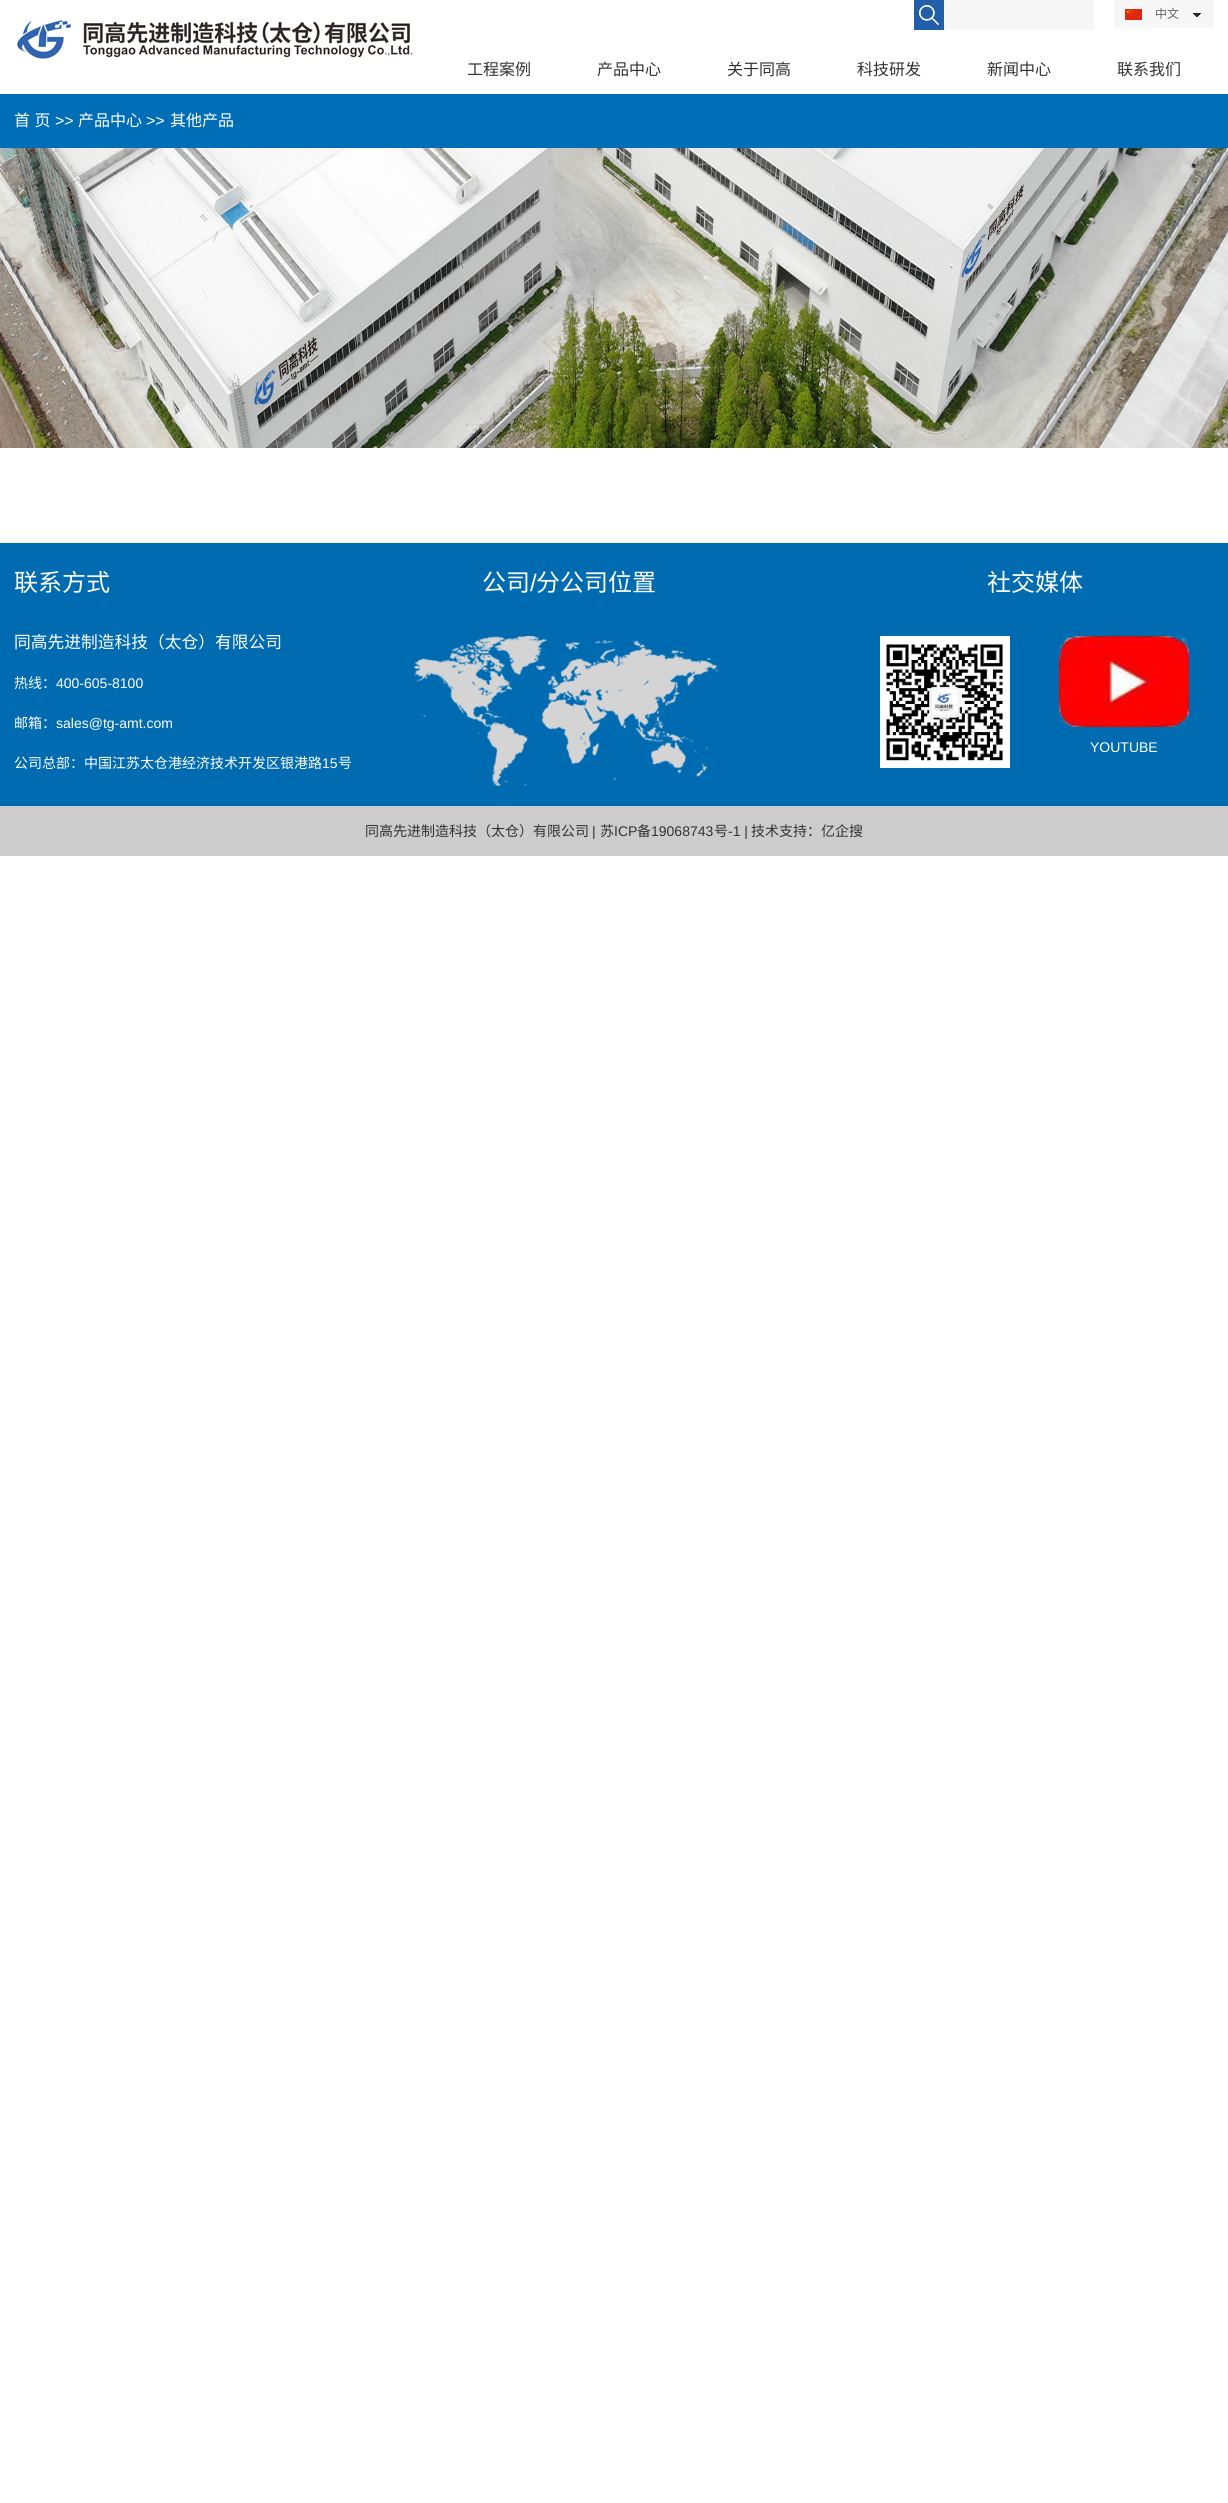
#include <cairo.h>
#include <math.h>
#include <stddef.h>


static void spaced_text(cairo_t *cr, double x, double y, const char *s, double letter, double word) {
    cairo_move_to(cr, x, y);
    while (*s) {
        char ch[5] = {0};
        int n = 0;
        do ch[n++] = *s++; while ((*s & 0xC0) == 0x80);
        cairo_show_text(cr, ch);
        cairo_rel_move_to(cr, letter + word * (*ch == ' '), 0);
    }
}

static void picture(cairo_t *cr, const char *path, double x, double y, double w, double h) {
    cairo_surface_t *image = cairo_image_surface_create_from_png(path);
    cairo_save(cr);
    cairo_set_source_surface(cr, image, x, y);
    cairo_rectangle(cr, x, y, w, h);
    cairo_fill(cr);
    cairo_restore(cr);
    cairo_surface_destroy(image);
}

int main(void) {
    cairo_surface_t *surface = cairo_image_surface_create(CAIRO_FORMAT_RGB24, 1228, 2503);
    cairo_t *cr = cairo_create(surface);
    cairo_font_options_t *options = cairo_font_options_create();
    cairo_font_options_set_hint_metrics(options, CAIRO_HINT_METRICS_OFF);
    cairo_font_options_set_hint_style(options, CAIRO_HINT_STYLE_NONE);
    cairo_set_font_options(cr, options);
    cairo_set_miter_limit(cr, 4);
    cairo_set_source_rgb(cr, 1, 1, 1);
    cairo_paint(cr);
    picture(cr, "img1.png", 17, 19, 396, 40);
    picture(cr, "img2.png", 914, 0, 180, 30);
    cairo_set_source_rgb(cr, 0.965, 0.965, 0.965);
    cairo_rectangle(cr, 1114, 0, 100, 28);
    cairo_fill(cr);
    picture(cr, "img3.png", 1125, 9, 17, 11);
    cairo_select_font_face(cr, "Noto Sans CJK SC", CAIRO_FONT_SLANT_NORMAL, CAIRO_FONT_WEIGHT_NORMAL);
    cairo_set_font_size(cr, 12);
    cairo_set_source_rgb(cr, 0.4, 0.4, 0.4);
    cairo_move_to(cr, 1155, 18);
    cairo_show_text(cr, "中文");
    picture(cr, "img4.png", 1193, 13, 8, 4);
    cairo_set_font_size(cr, 16);
    cairo_set_source_rgb(cr, 0.2, 0.2, 0.2);
    cairo_move_to(cr, 467, 75);
    cairo_show_text(cr, "工程案例");
    cairo_move_to(cr, 597, 75);
    cairo_show_text(cr, "产品中心");
    cairo_move_to(cr, 727, 75);
    cairo_show_text(cr, "关于同高");
    cairo_move_to(cr, 857, 75);
    cairo_show_text(cr, "科技研发");
    cairo_move_to(cr, 987, 75);
    cairo_show_text(cr, "新闻中心");
    cairo_move_to(cr, 1117, 75);
    cairo_show_text(cr, "联系我们");
    cairo_set_source_rgb(cr, 0, 0.431, 0.718);
    cairo_rectangle(cr, 0, 94, 1228, 54);
    cairo_fill(cr);
    cairo_set_source_rgb(cr, 1, 1, 1);
    spaced_text(cr, 14, 126, "首 页", 0, 1);
    cairo_select_font_face(cr, "Liberation Sans", CAIRO_FONT_SLANT_NORMAL, CAIRO_FONT_WEIGHT_NORMAL);
    cairo_move_to(cr, 55, 126);
    cairo_show_text(cr, ">>");
    cairo_select_font_face(cr, "Noto Sans CJK SC", CAIRO_FONT_SLANT_NORMAL, CAIRO_FONT_WEIGHT_NORMAL);
    cairo_move_to(cr, 78, 126);
    cairo_show_text(cr, "产品中心");
    cairo_select_font_face(cr, "Liberation Sans", CAIRO_FONT_SLANT_NORMAL, CAIRO_FONT_WEIGHT_NORMAL);
    cairo_move_to(cr, 146, 126);
    cairo_show_text(cr, ">>");
    cairo_select_font_face(cr, "Noto Sans CJK SC", CAIRO_FONT_SLANT_NORMAL, CAIRO_FONT_WEIGHT_NORMAL);
    cairo_move_to(cr, 170, 126);
    cairo_show_text(cr, "其他产品");
    picture(cr, "img5.png", 0, 148, 1228, 300);
    cairo_set_source_rgb(cr, 0, 0.42, 0.69);
    cairo_rectangle(cr, 0, 543, 1228, 263);
    cairo_fill(cr);
    cairo_set_font_size(cr, 24);
    cairo_set_source_rgb(cr, 1, 1, 1);
    cairo_move_to(cr, 14, 591);
    cairo_show_text(cr, "联系方式");
    cairo_set_font_size(cr, 16.75);
    cairo_move_to(cr, 14, 648);
    cairo_show_text(cr, "同高先进制造科技（太仓）有限公司");
    cairo_set_font_size(cr, 14);
    cairo_move_to(cr, 14, 688);
    cairo_show_text(cr, "热线：");
    cairo_select_font_face(cr, "Liberation Sans", CAIRO_FONT_SLANT_NORMAL, CAIRO_FONT_WEIGHT_NORMAL);
    cairo_move_to(cr, 56, 688);
    cairo_show_text(cr, "400-605-8100");
    cairo_select_font_face(cr, "Noto Sans CJK SC", CAIRO_FONT_SLANT_NORMAL, CAIRO_FONT_WEIGHT_NORMAL);
    cairo_move_to(cr, 14, 728);
    cairo_show_text(cr, "邮箱：");
    cairo_select_font_face(cr, "Liberation Sans", CAIRO_FONT_SLANT_NORMAL, CAIRO_FONT_WEIGHT_NORMAL);
    cairo_move_to(cr, 56, 728);
    cairo_show_text(cr, "sales@tg-amt.com");
    cairo_select_font_face(cr, "Noto Sans CJK SC", CAIRO_FONT_SLANT_NORMAL, CAIRO_FONT_WEIGHT_NORMAL);
    cairo_move_to(cr, 14, 768);
    cairo_show_text(cr, "公司总部：中国江苏太仓港经济技术开发区银港路");
    cairo_select_font_face(cr, "Liberation Sans", CAIRO_FONT_SLANT_NORMAL, CAIRO_FONT_WEIGHT_NORMAL);
    cairo_move_to(cr, 322, 768);
    cairo_show_text(cr, "15");
    cairo_select_font_face(cr, "Noto Sans CJK SC", CAIRO_FONT_SLANT_NORMAL, CAIRO_FONT_WEIGHT_NORMAL);
    cairo_move_to(cr, 338, 768);
    cairo_show_text(cr, "号");
    cairo_set_font_size(cr, 24);
    cairo_move_to(cr, 482, 591);
    cairo_show_text(cr, "公司");
    cairo_select_font_face(cr, "Liberation Sans", CAIRO_FONT_SLANT_NORMAL, CAIRO_FONT_WEIGHT_NORMAL);
    cairo_move_to(cr, 530, 591);
    cairo_show_text(cr, "/");
    cairo_select_font_face(cr, "Noto Sans CJK SC", CAIRO_FONT_SLANT_NORMAL, CAIRO_FONT_WEIGHT_NORMAL);
    cairo_move_to(cr, 536, 591);
    cairo_show_text(cr, "分公司位置");
    picture(cr, "img6.png", 414, 636, 304, 150);
    cairo_move_to(cr, 987, 591);
    cairo_show_text(cr, "社交媒体");
    picture(cr, "img7.png", 880, 636, 130, 132);
    picture(cr, "img8.png", 1059, 636, 130, 91);
    cairo_select_font_face(cr, "Liberation Sans", CAIRO_FONT_SLANT_NORMAL, CAIRO_FONT_WEIGHT_NORMAL);
    cairo_set_font_size(cr, 14);
    cairo_move_to(cr, 1090, 752);
    cairo_show_text(cr, "YOUTUBE");
    cairo_set_source_rgb(cr, 0.8, 0.8, 0.8);
    cairo_rectangle(cr, 0, 806, 1228, 50);
    cairo_fill(cr);
    cairo_select_font_face(cr, "Noto Sans CJK SC", CAIRO_FONT_SLANT_NORMAL, CAIRO_FONT_WEIGHT_NORMAL);
    cairo_set_source_rgb(cr, 0.2, 0.2, 0.2);
    cairo_move_to(cr, 365, 836);
    cairo_show_text(cr, "同高先进制造科技（太仓）有限公司");
    cairo_select_font_face(cr, "Liberation Sans", CAIRO_FONT_SLANT_NORMAL, CAIRO_FONT_WEIGHT_NORMAL);
    cairo_move_to(cr, 592, 836);
    cairo_show_text(cr, "|");
    cairo_select_font_face(cr, "Noto Sans CJK SC", CAIRO_FONT_SLANT_NORMAL, CAIRO_FONT_WEIGHT_NORMAL);
    cairo_move_to(cr, 600, 836);
    cairo_show_text(cr, "苏");
    cairo_select_font_face(cr, "Liberation Sans", CAIRO_FONT_SLANT_NORMAL, CAIRO_FONT_WEIGHT_NORMAL);
    cairo_move_to(cr, 614, 836);
    cairo_show_text(cr, "ICP");
    cairo_select_font_face(cr, "Noto Sans CJK SC", CAIRO_FONT_SLANT_NORMAL, CAIRO_FONT_WEIGHT_NORMAL);
    cairo_move_to(cr, 637, 836);
    cairo_show_text(cr, "备");
    cairo_select_font_face(cr, "Liberation Sans", CAIRO_FONT_SLANT_NORMAL, CAIRO_FONT_WEIGHT_NORMAL);
    cairo_move_to(cr, 651, 836);
    cairo_show_text(cr, "19068743");
    cairo_select_font_face(cr, "Noto Sans CJK SC", CAIRO_FONT_SLANT_NORMAL, CAIRO_FONT_WEIGHT_NORMAL);
    cairo_move_to(cr, 714, 836);
    cairo_show_text(cr, "号");
    cairo_select_font_face(cr, "Liberation Sans", CAIRO_FONT_SLANT_NORMAL, CAIRO_FONT_WEIGHT_NORMAL);
    cairo_move_to(cr, 728, 836);
    cairo_show_text(cr, "-1 |");
    cairo_select_font_face(cr, "Noto Sans CJK SC", CAIRO_FONT_SLANT_NORMAL, CAIRO_FONT_WEIGHT_NORMAL);
    cairo_move_to(cr, 751, 836);
    cairo_show_text(cr, "技术支持：亿企搜");
    cairo_surface_write_to_png(surface, "page.png");
    cairo_font_options_destroy(options);
    cairo_destroy(cr);
    cairo_surface_destroy(surface);
    return 0;
}
